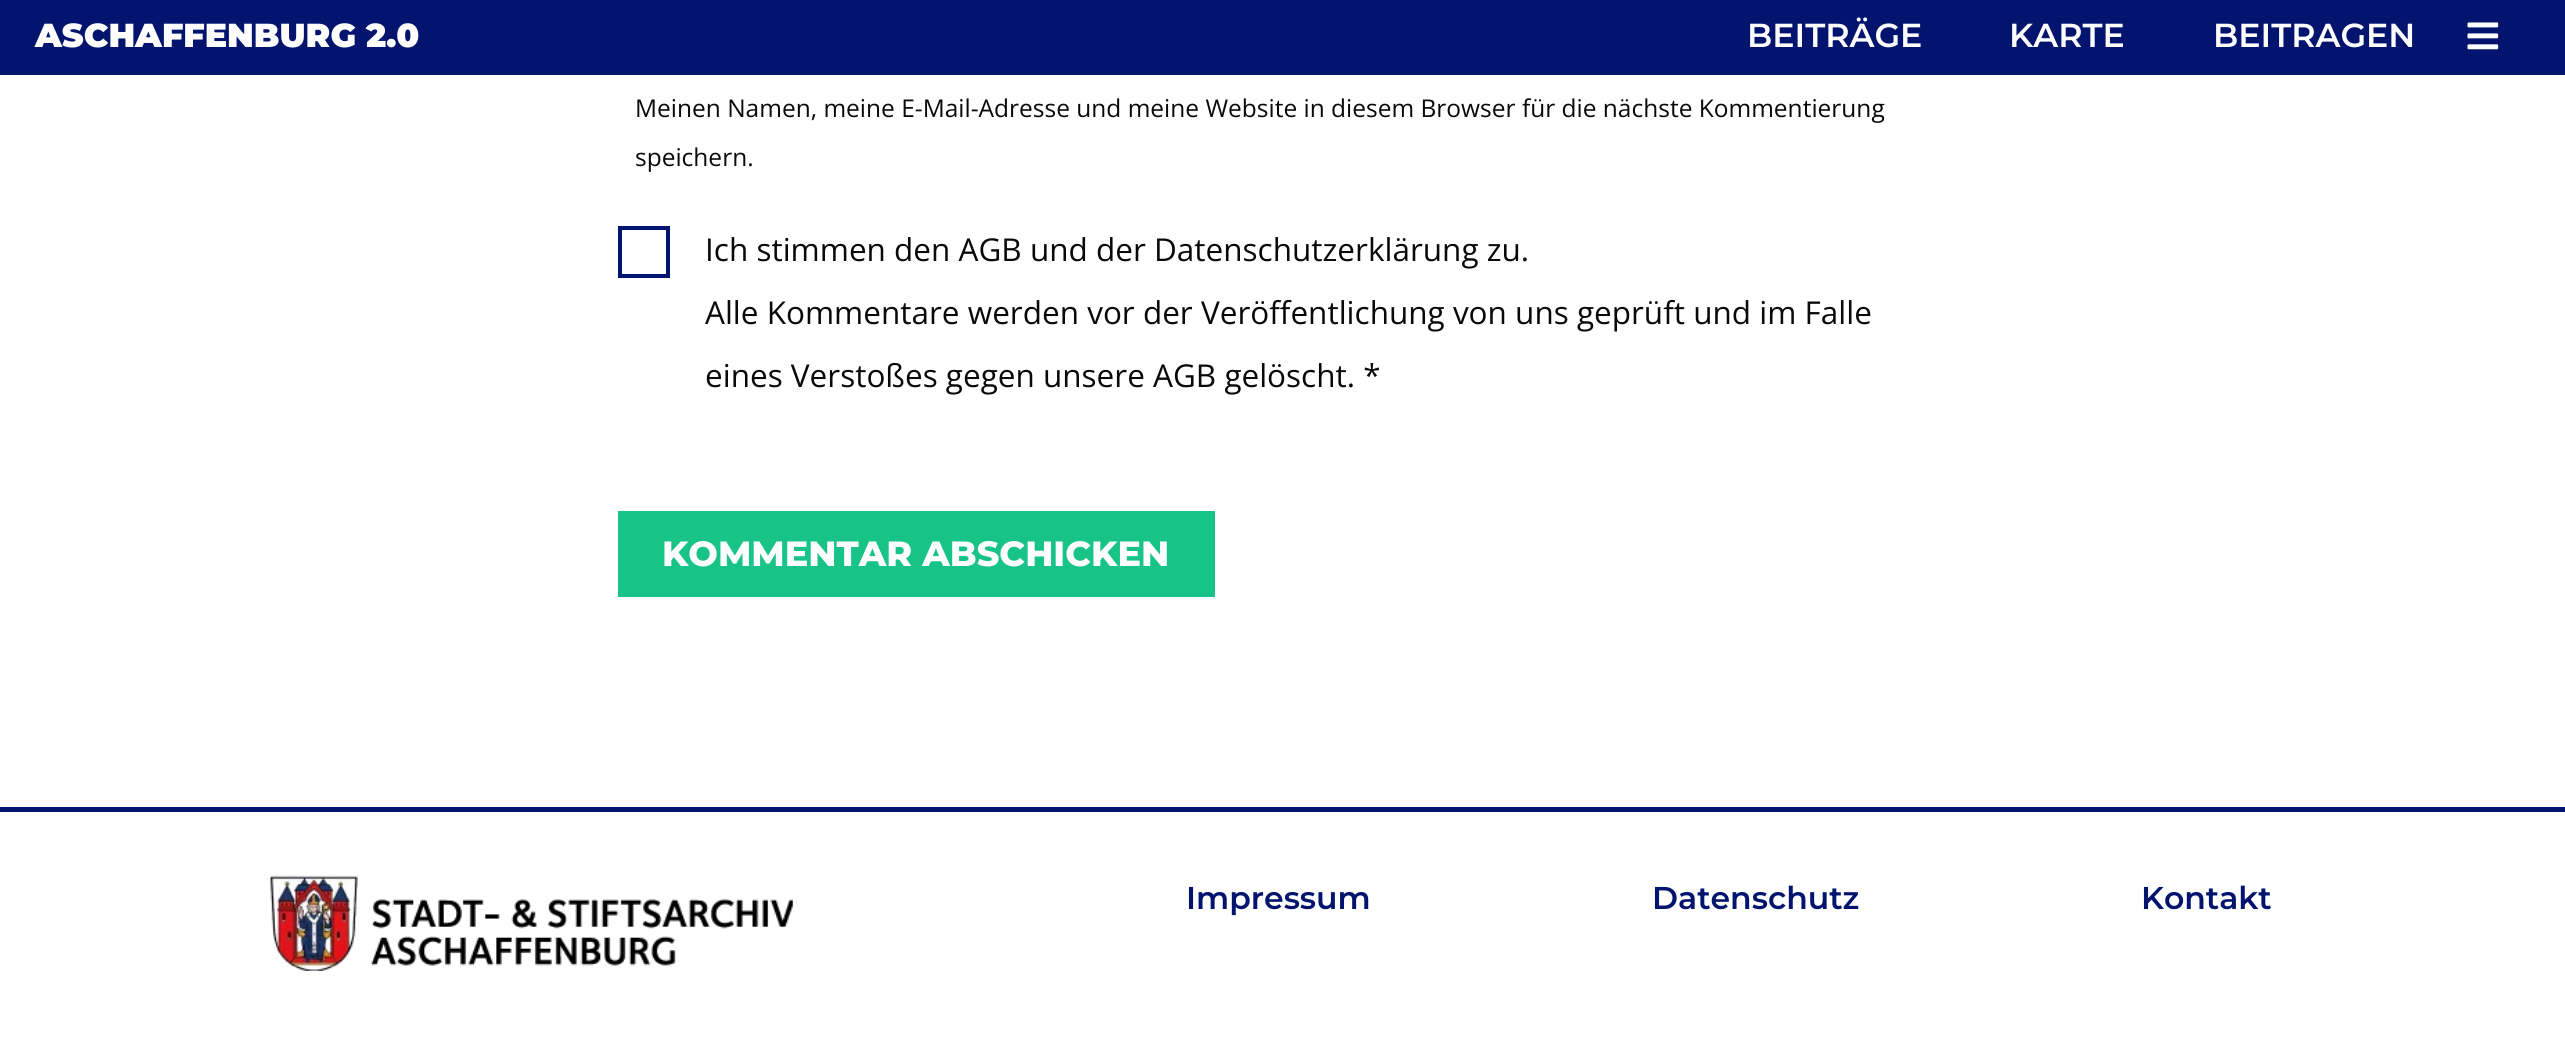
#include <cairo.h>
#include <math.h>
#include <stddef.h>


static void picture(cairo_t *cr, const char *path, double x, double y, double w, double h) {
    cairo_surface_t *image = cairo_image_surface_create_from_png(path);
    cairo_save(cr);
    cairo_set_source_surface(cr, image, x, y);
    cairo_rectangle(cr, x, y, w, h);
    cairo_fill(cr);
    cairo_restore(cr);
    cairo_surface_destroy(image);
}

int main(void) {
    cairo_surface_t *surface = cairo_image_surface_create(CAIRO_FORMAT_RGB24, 2565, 1041);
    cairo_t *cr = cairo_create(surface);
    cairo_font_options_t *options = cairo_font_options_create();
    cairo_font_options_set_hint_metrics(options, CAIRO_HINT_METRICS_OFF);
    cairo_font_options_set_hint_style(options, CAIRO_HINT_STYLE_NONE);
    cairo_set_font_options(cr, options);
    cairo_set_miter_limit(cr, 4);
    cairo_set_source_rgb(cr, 1, 1, 1);
    cairo_paint(cr);
    cairo_set_source_rgb(cr, 0.008, 0.082, 0.431);
    cairo_rectangle(cr, 0, 0, 2565, 75);
    cairo_fill(cr);
    cairo_select_font_face(cr, "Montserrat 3 Thin", CAIRO_FONT_SLANT_NORMAL, CAIRO_FONT_WEIGHT_NORMAL);
    cairo_set_font_size(cr, 33.25);
    cairo_set_source_rgb(cr, 0.996, 0.996, 0.996);
    cairo_move_to(cr, 35, 47);
    cairo_show_text(cr, "ASCHAFFENBURG 2.0");
    cairo_select_font_face(cr, "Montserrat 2 Thin", CAIRO_FONT_SLANT_NORMAL, CAIRO_FONT_WEIGHT_NORMAL);
    cairo_move_to(cr, 1747, 47);
    cairo_show_text(cr, "BEITRÄGE");
    cairo_move_to(cr, 2009, 47);
    cairo_show_text(cr, "KARTE");
    cairo_move_to(cr, 2213, 47);
    cairo_show_text(cr, "BEITRAGEN");
    picture(cr, "img1.png", 2467, 22, 32, 28);
    cairo_select_font_face(cr, "Open Sans", CAIRO_FONT_SLANT_NORMAL, CAIRO_FONT_WEIGHT_NORMAL);
    cairo_set_font_size(cr, 24.5);
    cairo_set_source_rgb(cr, 0.039, 0.039, 0.039);
    cairo_move_to(cr, 635, 117);
    cairo_show_text(cr, "Meinen Namen, meine E-Mail-Adresse und meine Website in diesem Browser für die nächste Kommentierung");
    cairo_move_to(cr, 635, 166);
    cairo_show_text(cr, "speichern.");
    cairo_rectangle(cr, 620, 228, 48, 48);
    cairo_set_source_rgb(cr, 0.008, 0.082, 0.431);
    cairo_set_line_width(cr, 4);
    cairo_stroke(cr);
    cairo_set_font_size(cr, 31.5);
    cairo_set_source_rgb(cr, 0.039, 0.039, 0.039);
    cairo_move_to(cr, 705, 261);
    cairo_show_text(cr, "Ich stimmen den AGB und der Datenschutzerklärung zu.");
    cairo_move_to(cr, 705, 324);
    cairo_show_text(cr, "Alle Kommentare werden vor der Veröffentlichung von uns geprüft und im Falle");
    cairo_move_to(cr, 705, 387);
    cairo_show_text(cr, "eines Verstoßes gegen unsere AGB gelöscht. *");
    cairo_set_source_rgb(cr, 0.09, 0.765, 0.529);
    cairo_rectangle(cr, 618, 511, 597, 86);
    cairo_fill(cr);
    cairo_select_font_face(cr, "Montserrat Thin", CAIRO_FONT_SLANT_NORMAL, CAIRO_FONT_WEIGHT_NORMAL);
    cairo_set_font_size(cr, 35);
    cairo_set_source_rgb(cr, 0.996, 0.996, 0.996);
    cairo_move_to(cr, 662, 566);
    cairo_show_text(cr, "KOMMENTAR ABSCHICKEN");
    cairo_set_source_rgb(cr, 0.008, 0.082, 0.431);
    cairo_rectangle(cr, 0, 807, 2565, 5);
    cairo_fill(cr);
    picture(cr, "img2.png", 270, 875, 523, 96);
    cairo_select_font_face(cr, "Montserrat 2 Thin", CAIRO_FONT_SLANT_NORMAL, CAIRO_FONT_WEIGHT_NORMAL);
    cairo_set_font_size(cr, 31.5);
    cairo_move_to(cr, 1186, 909);
    cairo_show_text(cr, "Impressum");
    cairo_move_to(cr, 1652, 909);
    cairo_show_text(cr, "Datenschutz");
    cairo_move_to(cr, 2141, 909);
    cairo_show_text(cr, "Kontakt");
    cairo_surface_write_to_png(surface, "page.png");
    cairo_font_options_destroy(options);
    cairo_destroy(cr);
    cairo_surface_destroy(surface);
    return 0;
}
